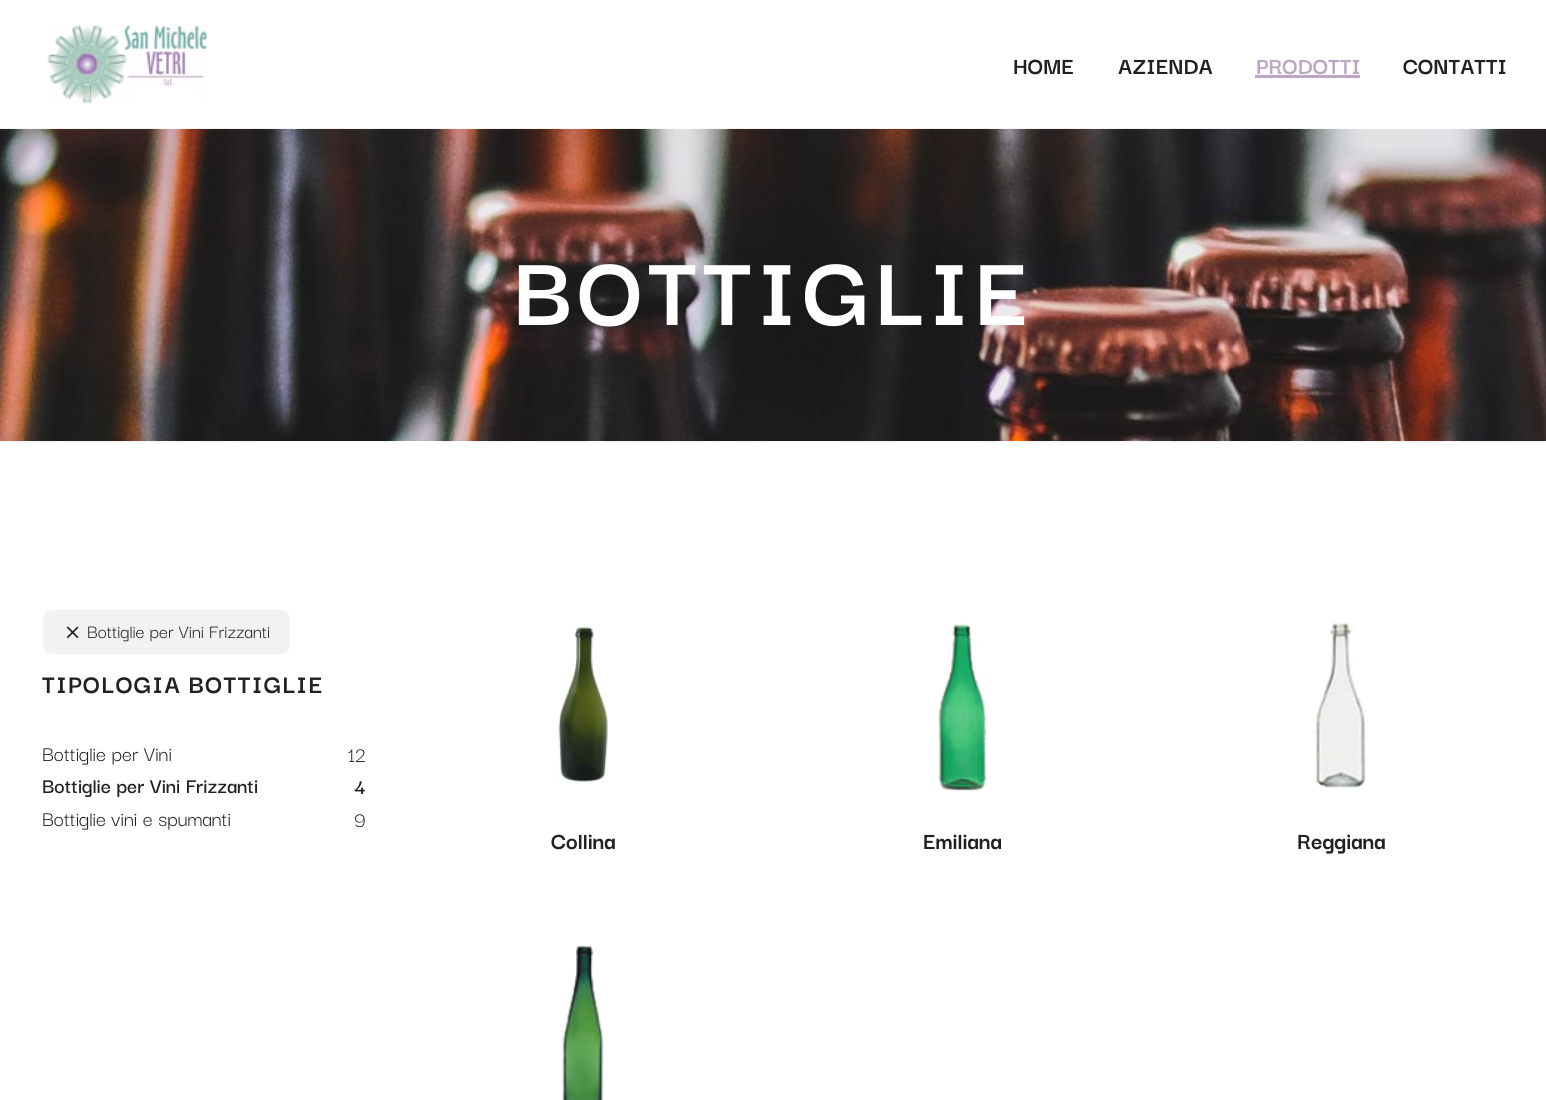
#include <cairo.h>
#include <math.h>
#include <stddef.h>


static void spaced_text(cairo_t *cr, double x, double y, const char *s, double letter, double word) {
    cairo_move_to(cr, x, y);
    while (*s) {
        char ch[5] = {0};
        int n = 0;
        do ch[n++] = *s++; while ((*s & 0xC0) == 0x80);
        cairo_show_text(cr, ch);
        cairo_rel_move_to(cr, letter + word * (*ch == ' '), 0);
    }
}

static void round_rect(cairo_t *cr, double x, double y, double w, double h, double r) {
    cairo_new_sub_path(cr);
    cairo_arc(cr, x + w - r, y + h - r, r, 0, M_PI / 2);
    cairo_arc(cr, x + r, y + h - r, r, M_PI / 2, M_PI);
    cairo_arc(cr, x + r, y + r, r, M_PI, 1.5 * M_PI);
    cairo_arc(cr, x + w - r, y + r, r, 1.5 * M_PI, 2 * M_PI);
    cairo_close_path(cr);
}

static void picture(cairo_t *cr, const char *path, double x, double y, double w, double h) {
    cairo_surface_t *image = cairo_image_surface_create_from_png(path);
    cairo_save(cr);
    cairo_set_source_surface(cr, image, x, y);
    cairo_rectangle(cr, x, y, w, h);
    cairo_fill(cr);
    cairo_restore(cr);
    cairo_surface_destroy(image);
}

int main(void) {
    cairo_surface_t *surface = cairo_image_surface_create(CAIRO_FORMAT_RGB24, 1546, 1100);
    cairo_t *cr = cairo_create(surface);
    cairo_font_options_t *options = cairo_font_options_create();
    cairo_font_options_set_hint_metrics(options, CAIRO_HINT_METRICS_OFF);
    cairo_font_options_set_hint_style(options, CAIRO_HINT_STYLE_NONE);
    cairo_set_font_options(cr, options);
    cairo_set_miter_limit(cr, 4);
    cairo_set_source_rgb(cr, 1, 1, 1);
    cairo_paint(cr);
    picture(cr, "img1.png", 47, 25, 161, 80);
    cairo_select_font_face(cr, "Darker Grotesque", CAIRO_FONT_SLANT_NORMAL, CAIRO_FONT_WEIGHT_BOLD);
    cairo_set_font_size(cr, 25);
    cairo_set_source_rgb(cr, 0.129, 0.129, 0.129);
    cairo_move_to(cr, 1013, 74);
    cairo_show_text(cr, "HOME");
    cairo_move_to(cr, 1118, 74);
    cairo_show_text(cr, "AZIENDA");
    cairo_set_source_rgb(cr, 0.733, 0.655, 0.757);
    cairo_move_to(cr, 1256, 74);
    cairo_show_text(cr, "PRODOTTI");
    cairo_rectangle(cr, 1255, 75, 105, 3);
    cairo_fill(cr);
    cairo_set_source_rgb(cr, 0.129, 0.129, 0.129);
    cairo_move_to(cr, 1403, 74);
    cairo_show_text(cr, "CONTATTI");
    picture(cr, "img2.png", 0, 128, 1546, 314);
    cairo_set_font_size(cr, 106.25);
    cairo_set_source_rgb(cr, 1, 1, 1);
    spaced_text(cr, 513, 325, "BOTTIGLIE", 5.25, 0);
    cairo_set_source_rgb(cr, 0.949, 0.949, 0.949);
    round_rect(cr, 43, 610, 247, 44, 9);
    cairo_fill(cr);
    picture(cr, "img3.png", 66, 626, 13, 13);
    cairo_select_font_face(cr, "Darker Grotesque", CAIRO_FONT_SLANT_NORMAL, CAIRO_FONT_WEIGHT_NORMAL);
    cairo_set_font_size(cr, 20.25);
    cairo_set_source_rgb(cr, 0.129, 0.129, 0.129);
    cairo_move_to(cr, 87, 638);
    cairo_show_text(cr, "Bottiglie per Vini Frizzanti");
    cairo_select_font_face(cr, "Darker Grotesque", CAIRO_FONT_SLANT_NORMAL, CAIRO_FONT_WEIGHT_BOLD);
    cairo_set_font_size(cr, 27.5);
    spaced_text(cr, 42, 693, "TIPOLOGIA BOTTIGLIE", 1.4, 0);
    cairo_select_font_face(cr, "Darker Grotesque", CAIRO_FONT_SLANT_NORMAL, CAIRO_FONT_WEIGHT_NORMAL);
    cairo_set_font_size(cr, 22.5);
    cairo_move_to(cr, 42, 761);
    cairo_show_text(cr, "Bottiglie per Vini");
    cairo_move_to(cr, 348, 762);
    cairo_show_text(cr, "12");
    cairo_select_font_face(cr, "Darker Grotesque SemiBold", CAIRO_FONT_SLANT_NORMAL, CAIRO_FONT_WEIGHT_NORMAL);
    cairo_move_to(cr, 42, 793);
    cairo_show_text(cr, "Bottiglie per Vini Frizzanti");
    cairo_move_to(cr, 354, 794);
    cairo_show_text(cr, "4");
    cairo_select_font_face(cr, "Darker Grotesque", CAIRO_FONT_SLANT_NORMAL, CAIRO_FONT_WEIGHT_NORMAL);
    cairo_move_to(cr, 42, 826);
    cairo_show_text(cr, "Bottiglie vini e spumanti");
    cairo_move_to(cr, 354, 827);
    cairo_show_text(cr, "9");
    picture(cr, "img4.png", 558, 627, 50, 155);
    cairo_select_font_face(cr, "Darker Grotesque", CAIRO_FONT_SLANT_NORMAL, CAIRO_FONT_WEIGHT_BOLD);
    cairo_set_font_size(cr, 25);
    cairo_move_to(cr, 551, 849);
    cairo_show_text(cr, "Collina");
    picture(cr, "img5.png", 938, 623, 50, 168);
    cairo_move_to(cr, 923, 849);
    cairo_show_text(cr, "Emiliana");
    picture(cr, "img6.png", 1316, 622, 50, 166);
    cairo_move_to(cr, 1297, 849);
    cairo_show_text(cr, "Reggiana");
    picture(cr, "img7.png", 562, 946, 42, 154);
    cairo_surface_write_to_png(surface, "page.png");
    cairo_font_options_destroy(options);
    cairo_destroy(cr);
    cairo_surface_destroy(surface);
    return 0;
}
